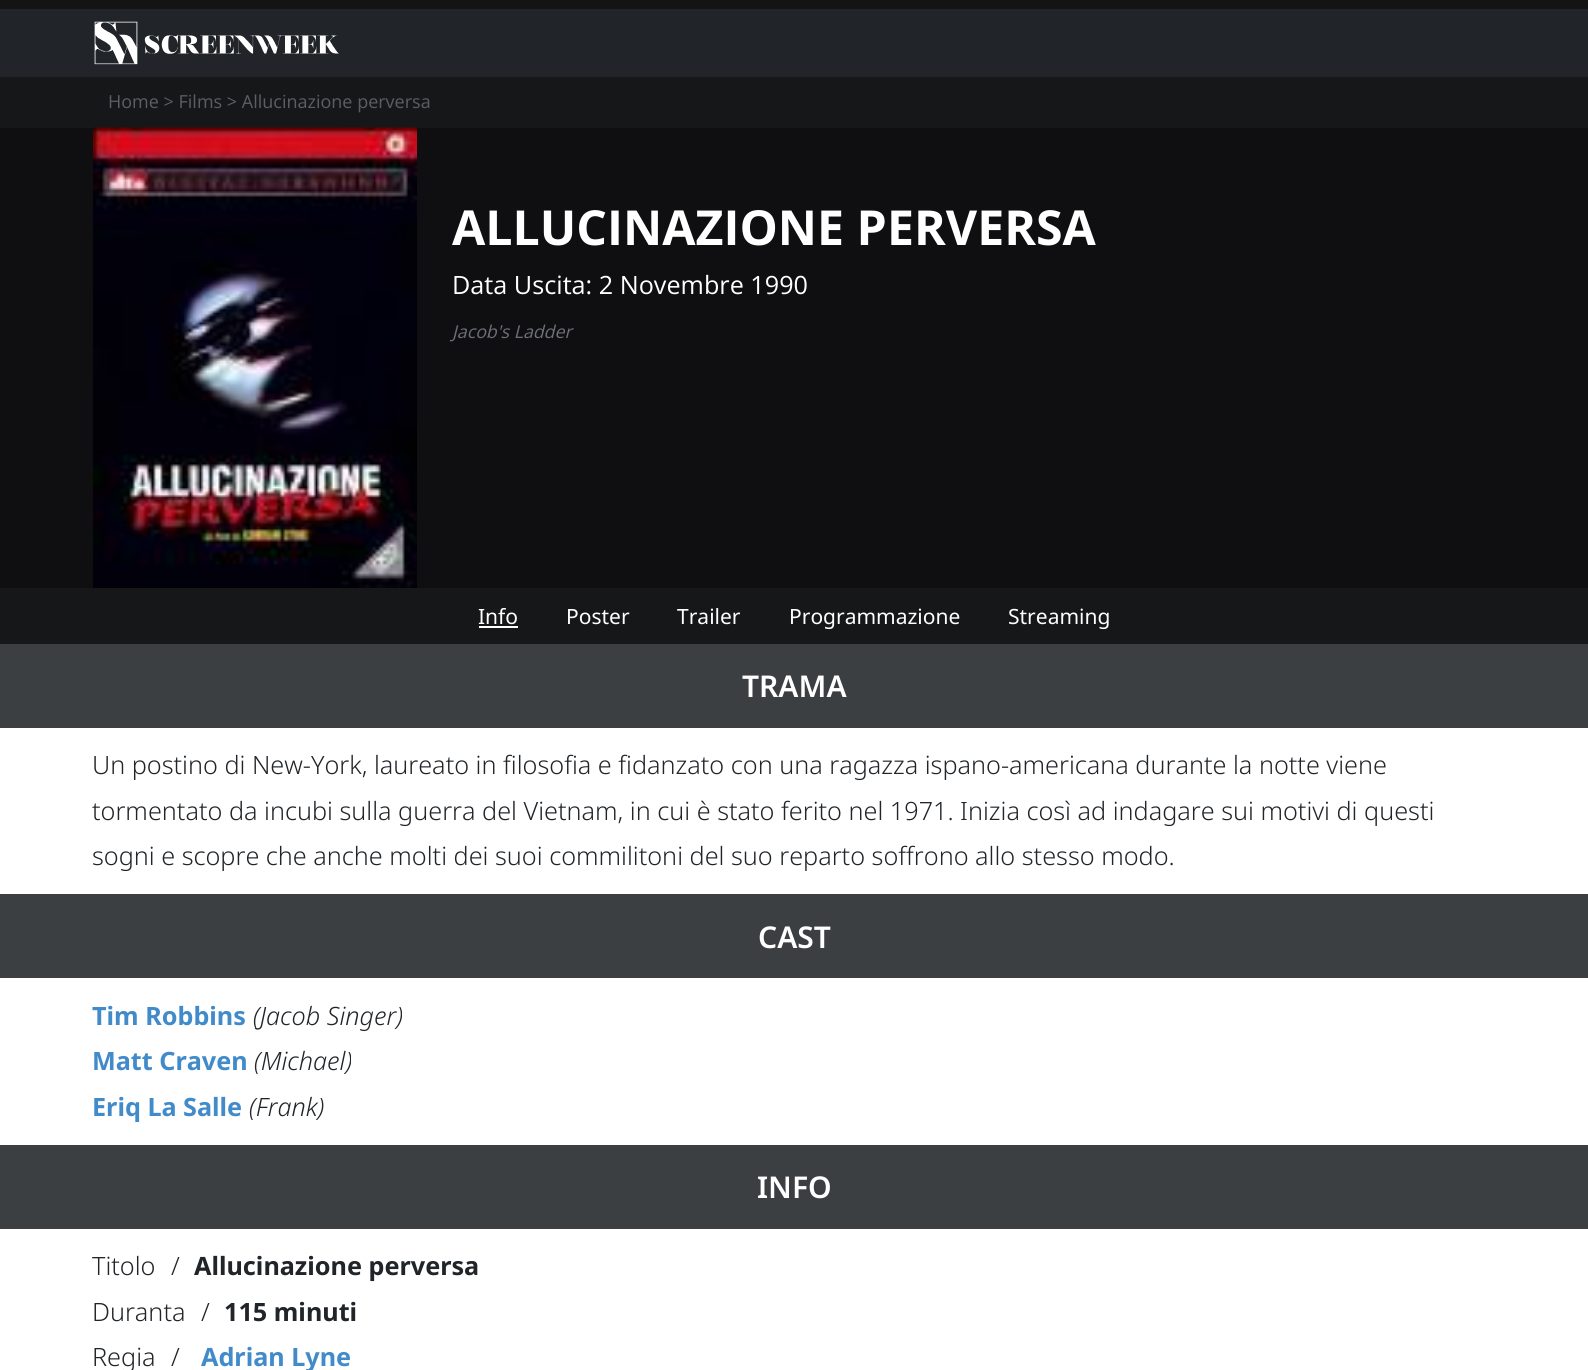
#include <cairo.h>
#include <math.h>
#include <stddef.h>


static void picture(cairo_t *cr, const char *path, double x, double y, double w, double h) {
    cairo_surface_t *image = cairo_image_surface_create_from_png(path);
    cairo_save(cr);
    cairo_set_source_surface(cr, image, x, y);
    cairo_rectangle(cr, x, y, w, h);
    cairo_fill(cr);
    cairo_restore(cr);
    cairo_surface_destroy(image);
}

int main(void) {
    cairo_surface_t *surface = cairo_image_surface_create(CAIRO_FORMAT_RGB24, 1588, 1370);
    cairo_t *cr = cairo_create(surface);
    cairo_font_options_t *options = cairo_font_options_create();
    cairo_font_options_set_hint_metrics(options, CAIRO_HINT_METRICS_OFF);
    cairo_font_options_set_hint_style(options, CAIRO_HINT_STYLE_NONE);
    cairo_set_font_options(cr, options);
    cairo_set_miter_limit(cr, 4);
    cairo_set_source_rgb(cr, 1, 1, 1);
    cairo_paint(cr);
    cairo_set_source_rgb(cr, 0.082, 0.082, 0.082);
    cairo_rectangle(cr, 0, 0, 1588, 9);
    cairo_fill(cr);
    cairo_set_source_rgb(cr, 0.129, 0.145, 0.161);
    cairo_rectangle(cr, 0, 9, 1588, 68);
    cairo_fill(cr);
    picture(cr, "img1.png", 94, 21, 245, 44);
    cairo_set_source_rgb(cr, 0.086, 0.09, 0.098);
    cairo_rectangle(cr, 0, 77, 1588, 51);
    cairo_fill(cr);
    cairo_select_font_face(cr, "Open Sans", CAIRO_FONT_SLANT_NORMAL, CAIRO_FONT_WEIGHT_NORMAL);
    cairo_set_font_size(cr, 18);
    cairo_set_source_rgb(cr, 0.361, 0.369, 0.388);
    cairo_move_to(cr, 108, 108);
    cairo_show_text(cr, "Home > Films > Allucinazione perversa");
    cairo_set_source_rgb(cr, 0.059, 0.059, 0.067);
    cairo_rectangle(cr, 0, 128, 1588, 460);
    cairo_fill(cr);
    picture(cr, "img2.png", 93, 127, 324, 461);
    cairo_select_font_face(cr, "Open Sans", CAIRO_FONT_SLANT_NORMAL, CAIRO_FONT_WEIGHT_BOLD);
    cairo_set_font_size(cr, 48.25);
    cairo_set_source_rgb(cr, 1, 1, 1);
    cairo_move_to(cr, 452, 245);
    cairo_show_text(cr, "ALLUCINAZIONE PERVERSA");
    cairo_select_font_face(cr, "Open Sans", CAIRO_FONT_SLANT_NORMAL, CAIRO_FONT_WEIGHT_NORMAL);
    cairo_set_font_size(cr, 25.2);
    cairo_move_to(cr, 452, 294);
    cairo_show_text(cr, "Data Uscita: 2 Novembre 1990");
    cairo_select_font_face(cr, "Open Sans", CAIRO_FONT_SLANT_ITALIC, CAIRO_FONT_WEIGHT_NORMAL);
    cairo_set_font_size(cr, 17.75);
    cairo_set_source_rgb(cr, 0.427, 0.439, 0.475);
    cairo_move_to(cr, 452, 338);
    cairo_show_text(cr, "Jacob's Ladder");
    cairo_set_source_rgb(cr, 0.086, 0.09, 0.098);
    cairo_rectangle(cr, 0, 588, 1588, 56);
    cairo_fill(cr);
    cairo_select_font_face(cr, "Noto Sans", CAIRO_FONT_SLANT_NORMAL, CAIRO_FONT_WEIGHT_NORMAL);
    cairo_set_font_size(cr, 21);
    cairo_set_source_rgb(cr, 1, 1, 1);
    cairo_move_to(cr, 478, 624);
    cairo_show_text(cr, "Info");
    cairo_rectangle(cr, 479, 626, 39, 2);
    cairo_fill(cr);
    cairo_move_to(cr, 566, 624);
    cairo_show_text(cr, "Poster");
    cairo_move_to(cr, 677, 624);
    cairo_show_text(cr, "Trailer");
    cairo_move_to(cr, 789, 624);
    cairo_show_text(cr, "Programmazione");
    cairo_move_to(cr, 1008, 624);
    cairo_show_text(cr, "Streaming");
    cairo_set_source_rgb(cr, 0.231, 0.247, 0.259);
    cairo_rectangle(cr, 0, 644, 1588, 84);
    cairo_fill(cr);
    cairo_select_font_face(cr, "Noto Sans SemiBold", CAIRO_FONT_SLANT_NORMAL, CAIRO_FONT_WEIGHT_NORMAL);
    cairo_set_font_size(cr, 30);
    cairo_set_source_rgb(cr, 1, 1, 1);
    cairo_move_to(cr, 742, 697);
    cairo_show_text(cr, "TRAMA");
    cairo_select_font_face(cr, "Noto Sans Light", CAIRO_FONT_SLANT_NORMAL, CAIRO_FONT_WEIGHT_NORMAL);
    cairo_set_font_size(cr, 25.2);
    cairo_set_source_rgb(cr, 0.129, 0.145, 0.161);
    cairo_move_to(cr, 92, 774);
    cairo_show_text(cr, "Un postino di New-York, laureato in filosofia e fidanzato con una ragazza ispano-americana durante la notte viene");
    cairo_move_to(cr, 92, 820);
    cairo_show_text(cr, "tormentato da incubi sulla guerra del Vietnam, in cui è stato ferito nel 1971. Inizia così ad indagare sui motivi di questi");
    cairo_move_to(cr, 92, 865);
    cairo_show_text(cr, "sogni e scopre che anche molti dei suoi commilitoni del suo reparto soffrono allo stesso modo.");
    cairo_set_source_rgb(cr, 0.231, 0.247, 0.259);
    cairo_rectangle(cr, 0, 894, 1588, 84);
    cairo_fill(cr);
    cairo_select_font_face(cr, "Noto Sans SemiBold", CAIRO_FONT_SLANT_NORMAL, CAIRO_FONT_WEIGHT_NORMAL);
    cairo_set_font_size(cr, 30);
    cairo_set_source_rgb(cr, 1, 1, 1);
    cairo_move_to(cr, 758, 948);
    cairo_show_text(cr, "CAST");
    cairo_select_font_face(cr, "Noto Sans", CAIRO_FONT_SLANT_NORMAL, CAIRO_FONT_WEIGHT_BOLD);
    cairo_set_font_size(cr, 25.2);
    cairo_set_source_rgb(cr, 0.259, 0.545, 0.792);
    cairo_move_to(cr, 92, 1025);
    cairo_show_text(cr, "Tim Robbins");
    cairo_select_font_face(cr, "Noto Sans Light", CAIRO_FONT_SLANT_ITALIC, CAIRO_FONT_WEIGHT_NORMAL);
    cairo_set_source_rgb(cr, 0.129, 0.145, 0.161);
    cairo_move_to(cr, 253, 1025);
    cairo_show_text(cr, "(Jacob Singer)");
    cairo_select_font_face(cr, "Noto Sans", CAIRO_FONT_SLANT_NORMAL, CAIRO_FONT_WEIGHT_BOLD);
    cairo_set_source_rgb(cr, 0.259, 0.545, 0.792);
    cairo_move_to(cr, 92, 1070);
    cairo_show_text(cr, "Matt Craven");
    cairo_select_font_face(cr, "Noto Sans Light", CAIRO_FONT_SLANT_ITALIC, CAIRO_FONT_WEIGHT_NORMAL);
    cairo_set_source_rgb(cr, 0.129, 0.145, 0.161);
    cairo_move_to(cr, 254, 1070);
    cairo_show_text(cr, "(Michael)");
    cairo_select_font_face(cr, "Noto Sans", CAIRO_FONT_SLANT_NORMAL, CAIRO_FONT_WEIGHT_BOLD);
    cairo_set_source_rgb(cr, 0.259, 0.545, 0.792);
    cairo_move_to(cr, 92, 1116);
    cairo_show_text(cr, "Eriq La Salle");
    cairo_select_font_face(cr, "Noto Sans Light", CAIRO_FONT_SLANT_ITALIC, CAIRO_FONT_WEIGHT_NORMAL);
    cairo_set_source_rgb(cr, 0.129, 0.145, 0.161);
    cairo_move_to(cr, 249, 1116);
    cairo_show_text(cr, "(Frank)");
    cairo_set_source_rgb(cr, 0.231, 0.247, 0.259);
    cairo_rectangle(cr, 0, 1145, 1588, 84);
    cairo_fill(cr);
    cairo_select_font_face(cr, "Noto Sans SemiBold", CAIRO_FONT_SLANT_NORMAL, CAIRO_FONT_WEIGHT_NORMAL);
    cairo_set_font_size(cr, 30);
    cairo_set_source_rgb(cr, 1, 1, 1);
    cairo_move_to(cr, 757, 1198);
    cairo_show_text(cr, "INFO");
    cairo_select_font_face(cr, "Noto Sans Light", CAIRO_FONT_SLANT_NORMAL, CAIRO_FONT_WEIGHT_NORMAL);
    cairo_set_font_size(cr, 25.2);
    cairo_set_source_rgb(cr, 0.129, 0.145, 0.161);
    cairo_move_to(cr, 92, 1275);
    cairo_show_text(cr, "Titolo");
    cairo_move_to(cr, 171, 1275);
    cairo_show_text(cr, "/");
    cairo_select_font_face(cr, "Noto Sans", CAIRO_FONT_SLANT_NORMAL, CAIRO_FONT_WEIGHT_BOLD);
    cairo_move_to(cr, 194, 1275);
    cairo_show_text(cr, "Allucinazione perversa");
    cairo_select_font_face(cr, "Noto Sans Light", CAIRO_FONT_SLANT_NORMAL, CAIRO_FONT_WEIGHT_NORMAL);
    cairo_move_to(cr, 92, 1321);
    cairo_show_text(cr, "Duranta");
    cairo_move_to(cr, 201, 1321);
    cairo_show_text(cr, "/");
    cairo_select_font_face(cr, "Noto Sans", CAIRO_FONT_SLANT_NORMAL, CAIRO_FONT_WEIGHT_BOLD);
    cairo_move_to(cr, 224, 1321);
    cairo_show_text(cr, "115 minuti");
    cairo_select_font_face(cr, "Noto Sans Light", CAIRO_FONT_SLANT_NORMAL, CAIRO_FONT_WEIGHT_NORMAL);
    cairo_move_to(cr, 92, 1366);
    cairo_show_text(cr, "Regia");
    cairo_move_to(cr, 171, 1366);
    cairo_show_text(cr, "/");
    cairo_select_font_face(cr, "Noto Sans", CAIRO_FONT_SLANT_NORMAL, CAIRO_FONT_WEIGHT_BOLD);
    cairo_set_source_rgb(cr, 0.259, 0.545, 0.792);
    cairo_move_to(cr, 201, 1366);
    cairo_show_text(cr, "Adrian Lyne");
    cairo_surface_write_to_png(surface, "page.png");
    cairo_font_options_destroy(options);
    cairo_destroy(cr);
    cairo_surface_destroy(surface);
    return 0;
}
